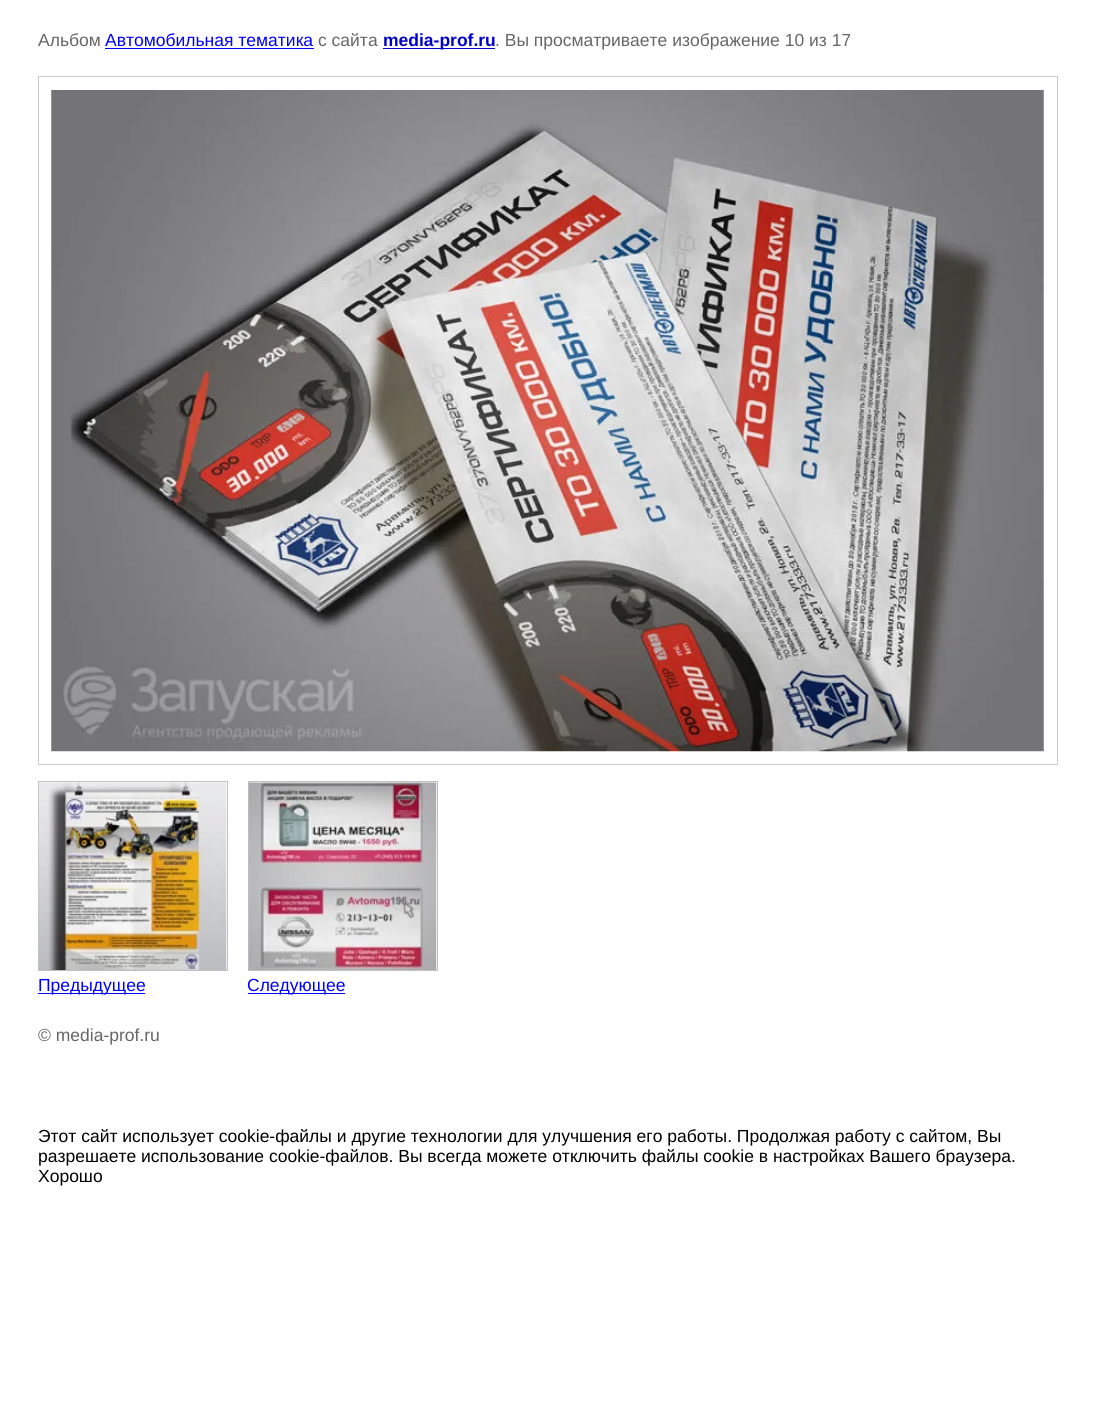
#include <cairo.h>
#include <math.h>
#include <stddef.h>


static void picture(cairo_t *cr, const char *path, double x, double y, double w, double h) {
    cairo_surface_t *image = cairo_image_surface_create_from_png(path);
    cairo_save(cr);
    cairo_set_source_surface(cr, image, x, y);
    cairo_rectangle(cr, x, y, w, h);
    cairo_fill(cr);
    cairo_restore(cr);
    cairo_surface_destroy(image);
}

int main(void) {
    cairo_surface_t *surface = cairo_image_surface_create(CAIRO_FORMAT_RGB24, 1094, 1402);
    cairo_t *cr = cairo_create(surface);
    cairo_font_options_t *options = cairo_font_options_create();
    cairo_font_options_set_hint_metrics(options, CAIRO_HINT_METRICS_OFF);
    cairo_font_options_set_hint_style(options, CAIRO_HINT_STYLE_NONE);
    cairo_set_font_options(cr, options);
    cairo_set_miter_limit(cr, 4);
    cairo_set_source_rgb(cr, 1, 1, 1);
    cairo_paint(cr);
    cairo_select_font_face(cr, "Liberation Sans", CAIRO_FONT_SLANT_NORMAL, CAIRO_FONT_WEIGHT_NORMAL);
    cairo_set_font_size(cr, 17.5);
    cairo_set_source_rgb(cr, 0.4, 0.4, 0.4);
    cairo_move_to(cr, 38, 46);
    cairo_show_text(cr, "Альбом");
    cairo_set_source_rgb(cr, 0, 0, 1);
    cairo_move_to(cr, 105, 46);
    cairo_show_text(cr, "Автомобильная тематика");
    cairo_rectangle(cr, 105, 48, 209, 1);
    cairo_fill(cr);
    cairo_set_source_rgb(cr, 0.4, 0.4, 0.4);
    cairo_move_to(cr, 318, 46);
    cairo_show_text(cr, "с сайта");
    cairo_set_source_rgb(cr, 0, 0, 0.8);
    cairo_rectangle(cr, 383, 48, 112, 1);
    cairo_fill(cr);
    cairo_select_font_face(cr, "Liberation Sans", CAIRO_FONT_SLANT_NORMAL, CAIRO_FONT_WEIGHT_BOLD);
    cairo_move_to(cr, 383, 46);
    cairo_show_text(cr, "media-prof.ru");
    cairo_select_font_face(cr, "Liberation Sans", CAIRO_FONT_SLANT_NORMAL, CAIRO_FONT_WEIGHT_NORMAL);
    cairo_set_source_rgb(cr, 0.4, 0.4, 0.4);
    cairo_move_to(cr, 495, 46);
    cairo_show_text(cr, ". Вы просматриваете изображение 10 из 17");
    cairo_rectangle(cr, 38.5, 76.5, 1019, 688);
    cairo_set_source_rgb(cr, 0.8, 0.8, 0.8);
    cairo_set_line_width(cr, 1);
    cairo_stroke(cr);
    picture(cr, "img1.png", 51, 90, 993, 662);
    cairo_rectangle(cr, 38.5, 781.5, 189, 189);
    cairo_set_source_rgb(cr, 0.753, 0.753, 0.753);
    cairo_stroke(cr);
    picture(cr, "img2.png", 38, 782, 189, 188);
    cairo_set_source_rgb(cr, 0, 0, 1);
    cairo_rectangle(cr, 38, 993, 107, 1);
    cairo_fill(cr);
    cairo_move_to(cr, 38, 991);
    cairo_show_text(cr, "Предыдущее");
    cairo_rectangle(cr, 248.5, 781.5, 189, 189);
    cairo_set_source_rgb(cr, 0.753, 0.753, 0.753);
    cairo_stroke(cr);
    picture(cr, "img3.png", 248, 782, 189, 188);
    cairo_set_source_rgb(cr, 0, 0, 1);
    cairo_rectangle(cr, 248, 993, 97, 1);
    cairo_fill(cr);
    cairo_move_to(cr, 247, 991);
    cairo_show_text(cr, "Следующее");
    cairo_set_source_rgb(cr, 0.4, 0.4, 0.4);
    cairo_move_to(cr, 38, 1041);
    cairo_show_text(cr, "© media-prof.ru");
    cairo_set_source_rgb(cr, 0, 0, 0);
    cairo_move_to(cr, 38, 1142);
    cairo_show_text(cr, "Этот сайт использует cookie-файлы и другие технологии для улучшения его работы. Продолжая работу с сайтом, Вы");
    cairo_move_to(cr, 38, 1162);
    cairo_show_text(cr, "разрешаете использование cookie-файлов. Вы всегда можете отключить файлы cookie в настройках Вашего браузера.");
    cairo_move_to(cr, 38, 1182);
    cairo_show_text(cr, "Хорошо");
    cairo_surface_write_to_png(surface, "page.png");
    cairo_font_options_destroy(options);
    cairo_destroy(cr);
    cairo_surface_destroy(surface);
    return 0;
}
